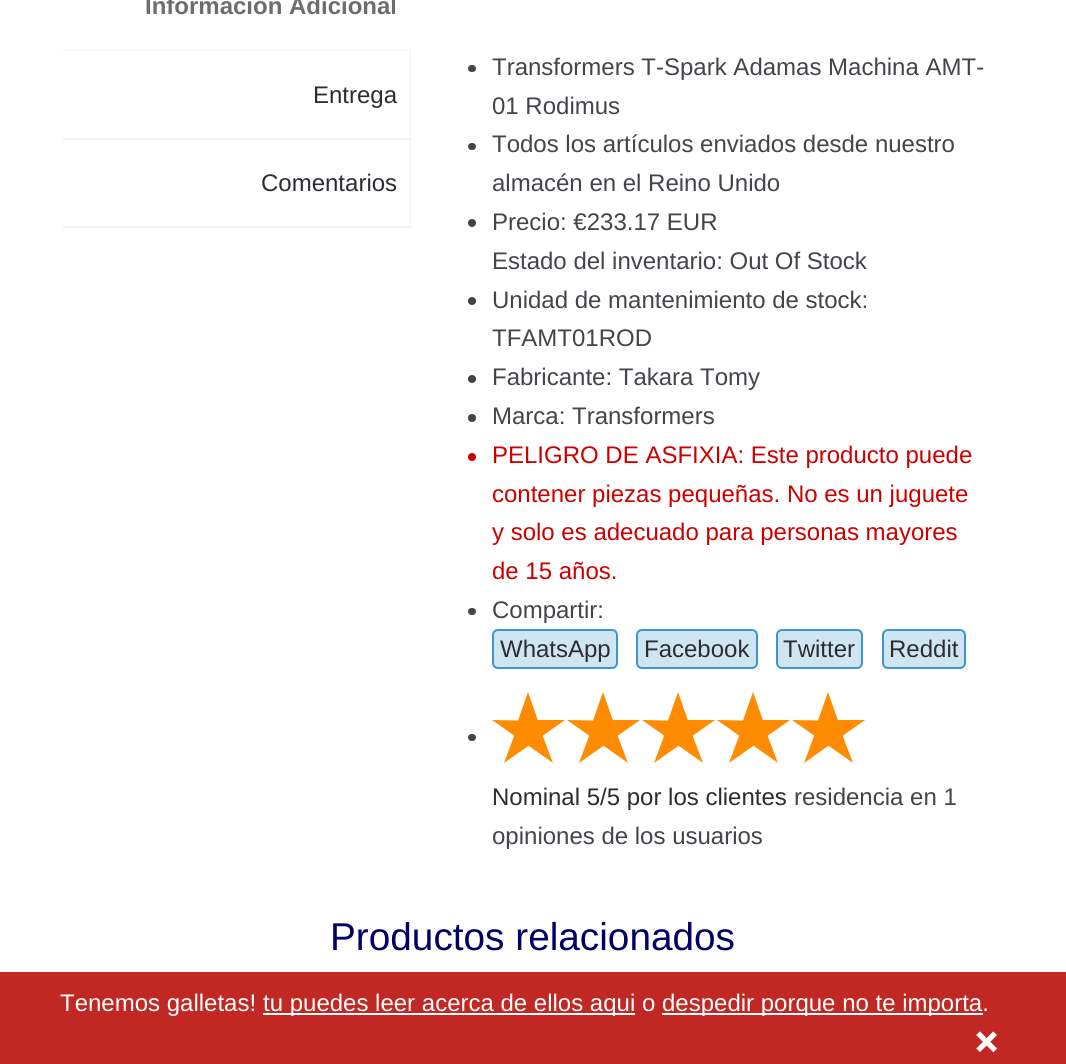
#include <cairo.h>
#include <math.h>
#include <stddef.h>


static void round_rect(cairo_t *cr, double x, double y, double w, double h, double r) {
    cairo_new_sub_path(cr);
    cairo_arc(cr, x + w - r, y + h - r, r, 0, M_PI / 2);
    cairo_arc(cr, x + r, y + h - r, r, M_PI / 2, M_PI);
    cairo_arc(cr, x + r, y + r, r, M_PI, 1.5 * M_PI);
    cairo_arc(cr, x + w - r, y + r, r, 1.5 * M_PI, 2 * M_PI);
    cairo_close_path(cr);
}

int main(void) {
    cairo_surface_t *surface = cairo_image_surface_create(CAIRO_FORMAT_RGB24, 1066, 1064);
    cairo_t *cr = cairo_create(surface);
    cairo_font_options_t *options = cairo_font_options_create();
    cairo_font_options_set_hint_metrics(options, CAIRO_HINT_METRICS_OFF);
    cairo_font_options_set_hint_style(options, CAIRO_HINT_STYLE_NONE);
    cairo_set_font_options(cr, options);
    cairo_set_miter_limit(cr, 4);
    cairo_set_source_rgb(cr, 1, 1, 1);
    cairo_paint(cr);
    cairo_set_source_rgb(cr, 0.949, 0.949, 0.949);
    cairo_new_path(cr);
    cairo_move_to(cr, 411, 51);
    cairo_line_to(cr, 63, 51);
    cairo_line_to(cr, 63, 50);
    cairo_line_to(cr, 410, 50);
    cairo_close_path(cr);
    cairo_fill(cr);
    cairo_select_font_face(cr, "Liberation Sans", CAIRO_FONT_SLANT_NORMAL, CAIRO_FONT_WEIGHT_BOLD);
    cairo_set_font_size(cr, 24);
    cairo_set_source_rgb(cr, 0.427, 0.427, 0.427);
    cairo_move_to(cr, 145, 14);
    cairo_show_text(cr, "Información Adicional");
    cairo_set_source_rgb(cr, 0.949, 0.949, 0.949);
    cairo_new_path(cr);
    cairo_move_to(cr, 411, 51);
    cairo_line_to(cr, 411, 140);
    cairo_line_to(cr, 410, 138);
    cairo_line_to(cr, 410, 51);
    cairo_close_path(cr);
    cairo_fill(cr);
    cairo_set_source_rgba(cr, 0, 0, 0, 0.05);
    cairo_new_path(cr);
    cairo_move_to(cr, 411, 140);
    cairo_line_to(cr, 63, 140);
    cairo_line_to(cr, 63, 138);
    cairo_line_to(cr, 410, 138);
    cairo_close_path(cr);
    cairo_fill(cr);
    cairo_select_font_face(cr, "Liberation Sans", CAIRO_FONT_SLANT_NORMAL, CAIRO_FONT_WEIGHT_NORMAL);
    cairo_set_source_rgb(cr, 0.173, 0.176, 0.2);
    cairo_move_to(cr, 313, 103);
    cairo_show_text(cr, "Entrega");
    cairo_set_source_rgb(cr, 0.949, 0.949, 0.949);
    cairo_new_path(cr);
    cairo_move_to(cr, 411, 140);
    cairo_line_to(cr, 411, 228);
    cairo_line_to(cr, 410, 226);
    cairo_line_to(cr, 410, 140);
    cairo_close_path(cr);
    cairo_fill(cr);
    cairo_set_source_rgba(cr, 0, 0, 0, 0.05);
    cairo_new_path(cr);
    cairo_move_to(cr, 411, 228);
    cairo_line_to(cr, 63, 228);
    cairo_line_to(cr, 63, 226);
    cairo_line_to(cr, 410, 226);
    cairo_close_path(cr);
    cairo_fill(cr);
    cairo_set_source_rgb(cr, 0.173, 0.176, 0.2);
    cairo_move_to(cr, 261, 191);
    cairo_show_text(cr, "Comentarios");
    cairo_set_source_rgb(cr, 0.263, 0.271, 0.294);
    round_rect(cr, 468, 65, 8, 7, 3.5);
    cairo_fill(cr);
    cairo_move_to(cr, 492, 75);
    cairo_show_text(cr, "Transformers T-Spark Adamas Machina AMT-");
    cairo_move_to(cr, 492, 114);
    cairo_show_text(cr, "01 Rodimus");
    round_rect(cr, 468, 143, 8, 7, 3.5);
    cairo_fill(cr);
    cairo_move_to(cr, 492, 152);
    cairo_show_text(cr, "Todos los artículos enviados desde nuestro");
    cairo_move_to(cr, 492, 191);
    cairo_show_text(cr, "almacén en el Reino Unido");
    cairo_new_path(cr);
    cairo_arc(cr, 472, 223, 4, 0, 2 * M_PI);
    cairo_fill(cr);
    cairo_move_to(cr, 492, 230);
    cairo_show_text(cr, "Precio: €233.17 EUR");
    cairo_move_to(cr, 492, 269);
    cairo_show_text(cr, "Estado del inventario: Out Of Stock");
    cairo_new_path(cr);
    cairo_arc(cr, 472, 301, 4, 0, 2 * M_PI);
    cairo_fill(cr);
    cairo_move_to(cr, 492, 308);
    cairo_show_text(cr, "Unidad de mantenimiento de stock:");
    cairo_move_to(cr, 492, 346);
    cairo_show_text(cr, "TFAMT01ROD");
    cairo_new_path(cr);
    cairo_arc(cr, 472, 379, 4, 0, 2 * M_PI);
    cairo_fill(cr);
    cairo_move_to(cr, 492, 385);
    cairo_show_text(cr, "Fabricante: Takara Tomy");
    cairo_new_path(cr);
    cairo_arc(cr, 472, 418, 4, 0, 2 * M_PI);
    cairo_fill(cr);
    cairo_move_to(cr, 492, 424);
    cairo_show_text(cr, "Marca: Transformers");
    cairo_set_source_rgb(cr, 0.8, 0, 0);
    cairo_new_path(cr);
    cairo_arc(cr, 472, 457, 4, 0, 2 * M_PI);
    cairo_fill(cr);
    cairo_move_to(cr, 492, 463);
    cairo_show_text(cr, "PELIGRO DE ASFIXIA: Este producto puede");
    cairo_move_to(cr, 492, 502);
    cairo_show_text(cr, "contener piezas pequeñas. No es un juguete");
    cairo_move_to(cr, 492, 540);
    cairo_show_text(cr, "y solo es adecuado para personas mayores");
    cairo_move_to(cr, 492, 579);
    cairo_show_text(cr, "de 15 años.");
    cairo_set_source_rgb(cr, 0.263, 0.271, 0.294);
    round_rect(cr, 468, 608, 8, 7, 3.5);
    cairo_fill(cr);
    cairo_move_to(cr, 492, 618);
    cairo_show_text(cr, "Compartir:");
    cairo_set_source_rgb(cr, 0.812, 0.898, 0.949);
    round_rect(cr, 493, 630, 124, 38, 5);
    cairo_fill_preserve(cr);
    cairo_set_source_rgb(cr, 0.251, 0.584, 0.8);
    cairo_stroke(cr);
    cairo_set_source_rgb(cr, 0.173, 0.176, 0.2);
    cairo_move_to(cr, 500, 657);
    cairo_show_text(cr, "WhatsApp");
    cairo_set_source_rgb(cr, 0.812, 0.898, 0.949);
    round_rect(cr, 637, 630, 120, 38, 5);
    cairo_fill_preserve(cr);
    cairo_set_source_rgb(cr, 0.251, 0.584, 0.8);
    cairo_stroke(cr);
    cairo_set_source_rgb(cr, 0.173, 0.176, 0.2);
    cairo_move_to(cr, 644, 657);
    cairo_show_text(cr, "Facebook");
    cairo_set_source_rgb(cr, 0.812, 0.898, 0.949);
    round_rect(cr, 777, 630, 85, 38, 5);
    cairo_fill_preserve(cr);
    cairo_set_source_rgb(cr, 0.251, 0.584, 0.8);
    cairo_stroke(cr);
    cairo_set_source_rgb(cr, 0.173, 0.176, 0.2);
    cairo_move_to(cr, 783, 657);
    cairo_show_text(cr, "Twitter");
    cairo_set_source_rgb(cr, 0.812, 0.898, 0.949);
    round_rect(cr, 883, 630, 82, 38, 5);
    cairo_fill_preserve(cr);
    cairo_set_source_rgb(cr, 0.251, 0.584, 0.8);
    cairo_stroke(cr);
    cairo_set_source_rgb(cr, 0.173, 0.176, 0.2);
    cairo_move_to(cr, 889, 657);
    cairo_show_text(cr, "Reddit");
    cairo_set_source_rgb(cr, 0.263, 0.271, 0.294);
    round_rect(cr, 468, 734, 8, 7, 3.5);
    cairo_fill(cr);
    cairo_set_source_rgb(cr, 1, 0.549, 0);
    cairo_new_path(cr);
    cairo_move_to(cr, 553, 763);
    cairo_line_to(cr, 492, 720);
    cairo_line_to(cr, 537, 721);
    cairo_close_path(cr);
    cairo_fill(cr);
    cairo_new_path(cr);
    cairo_move_to(cr, 538.5, 722);
    cairo_line_to(cr, 517.5, 722);
    cairo_line_to(cr, 528, 692);
    cairo_close_path(cr);
    cairo_fill(cr);
    cairo_new_path(cr);
    cairo_move_to(cr, 565, 720);
    cairo_line_to(cr, 504, 763);
    cairo_line_to(cr, 520, 720);
    cairo_close_path(cr);
    cairo_fill(cr);
    cairo_new_path(cr);
    cairo_move_to(cr, 628, 763);
    cairo_line_to(cr, 567, 720);
    cairo_line_to(cr, 612, 721);
    cairo_close_path(cr);
    cairo_fill(cr);
    cairo_new_path(cr);
    cairo_move_to(cr, 613.5, 722);
    cairo_line_to(cr, 592.5, 722);
    cairo_line_to(cr, 603, 692);
    cairo_close_path(cr);
    cairo_fill(cr);
    cairo_new_path(cr);
    cairo_move_to(cr, 640, 720);
    cairo_line_to(cr, 579, 763);
    cairo_line_to(cr, 595, 720);
    cairo_close_path(cr);
    cairo_fill(cr);
    cairo_new_path(cr);
    cairo_move_to(cr, 703, 763);
    cairo_line_to(cr, 642, 720);
    cairo_line_to(cr, 687, 721);
    cairo_close_path(cr);
    cairo_fill(cr);
    cairo_new_path(cr);
    cairo_move_to(cr, 688.5, 722);
    cairo_line_to(cr, 667.5, 722);
    cairo_line_to(cr, 678, 692);
    cairo_close_path(cr);
    cairo_fill(cr);
    cairo_new_path(cr);
    cairo_move_to(cr, 715, 720);
    cairo_line_to(cr, 654, 763);
    cairo_line_to(cr, 670, 720);
    cairo_close_path(cr);
    cairo_fill(cr);
    cairo_new_path(cr);
    cairo_move_to(cr, 778, 763);
    cairo_line_to(cr, 717, 720);
    cairo_line_to(cr, 762, 721);
    cairo_close_path(cr);
    cairo_fill(cr);
    cairo_new_path(cr);
    cairo_move_to(cr, 763.5, 722);
    cairo_line_to(cr, 742.5, 722);
    cairo_line_to(cr, 753, 692);
    cairo_close_path(cr);
    cairo_fill(cr);
    cairo_new_path(cr);
    cairo_move_to(cr, 790, 720);
    cairo_line_to(cr, 729, 763);
    cairo_line_to(cr, 745, 720);
    cairo_close_path(cr);
    cairo_fill(cr);
    cairo_new_path(cr);
    cairo_move_to(cr, 853, 763);
    cairo_line_to(cr, 792, 720);
    cairo_line_to(cr, 837, 721);
    cairo_close_path(cr);
    cairo_fill(cr);
    cairo_new_path(cr);
    cairo_move_to(cr, 838.5, 722);
    cairo_line_to(cr, 817.5, 722);
    cairo_line_to(cr, 828, 692);
    cairo_close_path(cr);
    cairo_fill(cr);
    cairo_new_path(cr);
    cairo_move_to(cr, 865, 720);
    cairo_line_to(cr, 804, 763);
    cairo_line_to(cr, 820, 720);
    cairo_close_path(cr);
    cairo_fill(cr);
    cairo_set_source_rgb(cr, 0.173, 0.176, 0.2);
    cairo_move_to(cr, 492, 805);
    cairo_show_text(cr, "Nominal 5/5 por los clientes");
    cairo_set_source_rgb(cr, 0.263, 0.271, 0.294);
    cairo_move_to(cr, 794, 805);
    cairo_show_text(cr, "residencia en 1");
    cairo_move_to(cr, 492, 844);
    cairo_show_text(cr, "opiniones de los usuarios");
    cairo_set_font_size(cr, 38.75);
    cairo_set_source_rgb(cr, 0, 0, 0.4);
    cairo_move_to(cr, 330, 950);
    cairo_show_text(cr, "Productos relacionados");
    cairo_set_source_rgb(cr, 0.757, 0.153, 0.137);
    cairo_rectangle(cr, 0, 972, 1066, 92);
    cairo_fill(cr);
    cairo_set_font_size(cr, 24);
    cairo_set_source_rgb(cr, 1, 1, 1);
    cairo_move_to(cr, 60, 1011);
    cairo_show_text(cr, "Tenemos galletas!");
    cairo_rectangle(cr, 263, 1013, 372, 2);
    cairo_fill(cr);
    cairo_move_to(cr, 263, 1011);
    cairo_show_text(cr, "tu puedes leer acerca de ellos aqui o");
    cairo_rectangle(cr, 662, 1013, 321, 2);
    cairo_fill(cr);
    cairo_move_to(cr, 662, 1011);
    cairo_show_text(cr, "despedir porque no te importa.");
    cairo_select_font_face(cr, "Liberation Sans", CAIRO_FONT_SLANT_NORMAL, CAIRO_FONT_WEIGHT_BOLD);
    cairo_set_font_size(cr, 48);
    cairo_save(cr);
    cairo_translate(cr, 988, 1063);
    cairo_rotate(cr, -45 * M_PI / 180);
    cairo_move_to(cr, 0, 0);
    cairo_show_text(cr, "+");
    cairo_restore(cr);
    cairo_surface_write_to_png(surface, "page.png");
    cairo_font_options_destroy(options);
    cairo_destroy(cr);
    cairo_surface_destroy(surface);
    return 0;
}
